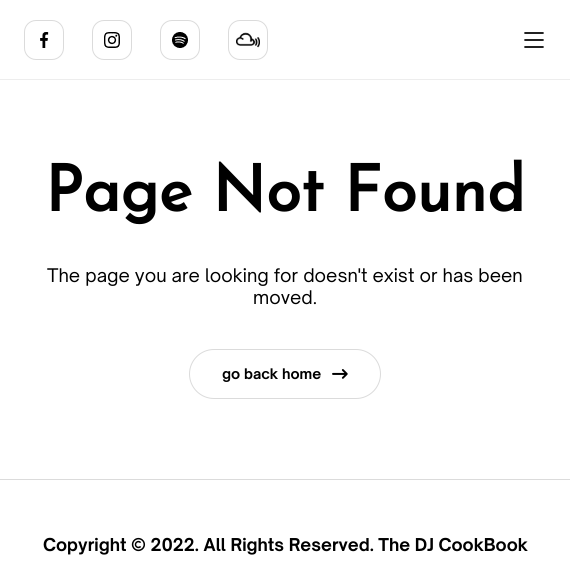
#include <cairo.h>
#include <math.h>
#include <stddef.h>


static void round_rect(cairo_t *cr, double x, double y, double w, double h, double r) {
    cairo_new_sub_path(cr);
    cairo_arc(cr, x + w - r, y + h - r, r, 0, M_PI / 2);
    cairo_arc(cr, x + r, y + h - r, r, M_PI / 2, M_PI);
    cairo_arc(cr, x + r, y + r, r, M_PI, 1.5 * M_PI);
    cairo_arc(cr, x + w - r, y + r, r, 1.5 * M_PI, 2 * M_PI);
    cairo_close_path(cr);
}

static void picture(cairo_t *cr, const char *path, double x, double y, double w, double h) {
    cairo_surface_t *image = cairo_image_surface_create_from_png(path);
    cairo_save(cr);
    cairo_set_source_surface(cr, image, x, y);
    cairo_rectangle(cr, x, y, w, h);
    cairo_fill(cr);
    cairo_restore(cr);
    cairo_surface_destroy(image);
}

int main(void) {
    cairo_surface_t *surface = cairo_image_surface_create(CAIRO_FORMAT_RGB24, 570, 567);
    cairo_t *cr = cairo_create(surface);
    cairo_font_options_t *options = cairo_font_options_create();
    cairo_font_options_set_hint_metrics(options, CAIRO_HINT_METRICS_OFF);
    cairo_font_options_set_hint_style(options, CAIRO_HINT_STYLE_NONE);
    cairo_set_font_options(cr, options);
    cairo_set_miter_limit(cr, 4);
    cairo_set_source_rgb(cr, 1, 1, 1);
    cairo_paint(cr);
    cairo_set_source_rgb(cr, 0.929, 0.929, 0.929);
    cairo_rectangle(cr, 0, 79, 570, 1);
    cairo_fill(cr);
    round_rect(cr, 24.5, 20.5, 39, 39, 11.5);
    cairo_set_source_rgb(cr, 0.859, 0.859, 0.859);
    cairo_set_line_width(cr, 1);
    cairo_stroke(cr);
    picture(cr, "img1.png", 40, 32, 9, 16);
    round_rect(cr, 92.5, 20.5, 39, 39, 11.5);
    cairo_stroke(cr);
    picture(cr, "img2.png", 104, 32, 16, 16);
    round_rect(cr, 160.5, 20.5, 39, 39, 11.5);
    cairo_stroke(cr);
    picture(cr, "img3.png", 172, 32, 16, 16);
    round_rect(cr, 228.5, 20.5, 39, 39, 11.5);
    cairo_stroke(cr);
    picture(cr, "img4.png", 236, 32, 24, 16);
    cairo_new_path(cr);
    cairo_move_to(cr, 543, 33);
    cairo_line_to(cr, 525, 33);
    cairo_move_to(cr, 525, 47);
    cairo_line_to(cr, 543, 47);
    cairo_set_source_rgb(cr, 0, 0, 0);
    cairo_set_line_width(cr, 1.7);
    cairo_set_line_cap(cr, CAIRO_LINE_CAP_ROUND);
    cairo_set_line_join(cr, CAIRO_LINE_JOIN_ROUND);
    cairo_stroke(cr);
    cairo_new_path(cr);
    cairo_move_to(cr, 525, 40);
    cairo_line_to(cr, 543, 40);
    cairo_set_line_join(cr, CAIRO_LINE_JOIN_MITER);
    cairo_stroke(cr);
    cairo_select_font_face(cr, "Josefin Sans", CAIRO_FONT_SLANT_NORMAL, CAIRO_FONT_WEIGHT_BOLD);
    cairo_set_font_size(cr, 64);
    cairo_move_to(cr, 45, 211);
    cairo_show_text(cr, "Page Not Found");
    cairo_select_font_face(cr, "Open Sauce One", CAIRO_FONT_SLANT_NORMAL, CAIRO_FONT_WEIGHT_NORMAL);
    cairo_set_font_size(cr, 18);
    cairo_move_to(cr, 47, 282);
    cairo_show_text(cr, "The page you are looking for doesn't exist or has been");
    cairo_move_to(cr, 253, 304);
    cairo_show_text(cr, "moved.");
    round_rect(cr, 189.5, 349.5, 191, 49, 24.5);
    cairo_set_source_rgb(cr, 0.859, 0.859, 0.859);
    cairo_set_line_width(cr, 1);
    cairo_set_line_cap(cr, CAIRO_LINE_CAP_BUTT);
    cairo_stroke(cr);
    cairo_select_font_face(cr, "Open Sauce One", CAIRO_FONT_SLANT_NORMAL, CAIRO_FONT_WEIGHT_BOLD);
    cairo_set_font_size(cr, 14);
    cairo_set_source_rgb(cr, 0, 0, 0);
    cairo_move_to(cr, 222, 379);
    cairo_show_text(cr, "go back home");
    picture(cr, "img5.png", 332, 369, 16, 10);
    cairo_set_source_rgb(cr, 0.859, 0.859, 0.859);
    cairo_rectangle(cr, 0, 479, 570, 1);
    cairo_fill(cr);
    cairo_set_font_size(cr, 17);
    cairo_set_source_rgb(cr, 0, 0, 0);
    cairo_move_to(cr, 43, 551);
    cairo_show_text(cr, "Copyright © 2022. All Rights Reserved. The DJ CookBook");
    cairo_surface_write_to_png(surface, "page.png");
    cairo_font_options_destroy(options);
    cairo_destroy(cr);
    cairo_surface_destroy(surface);
    return 0;
}
